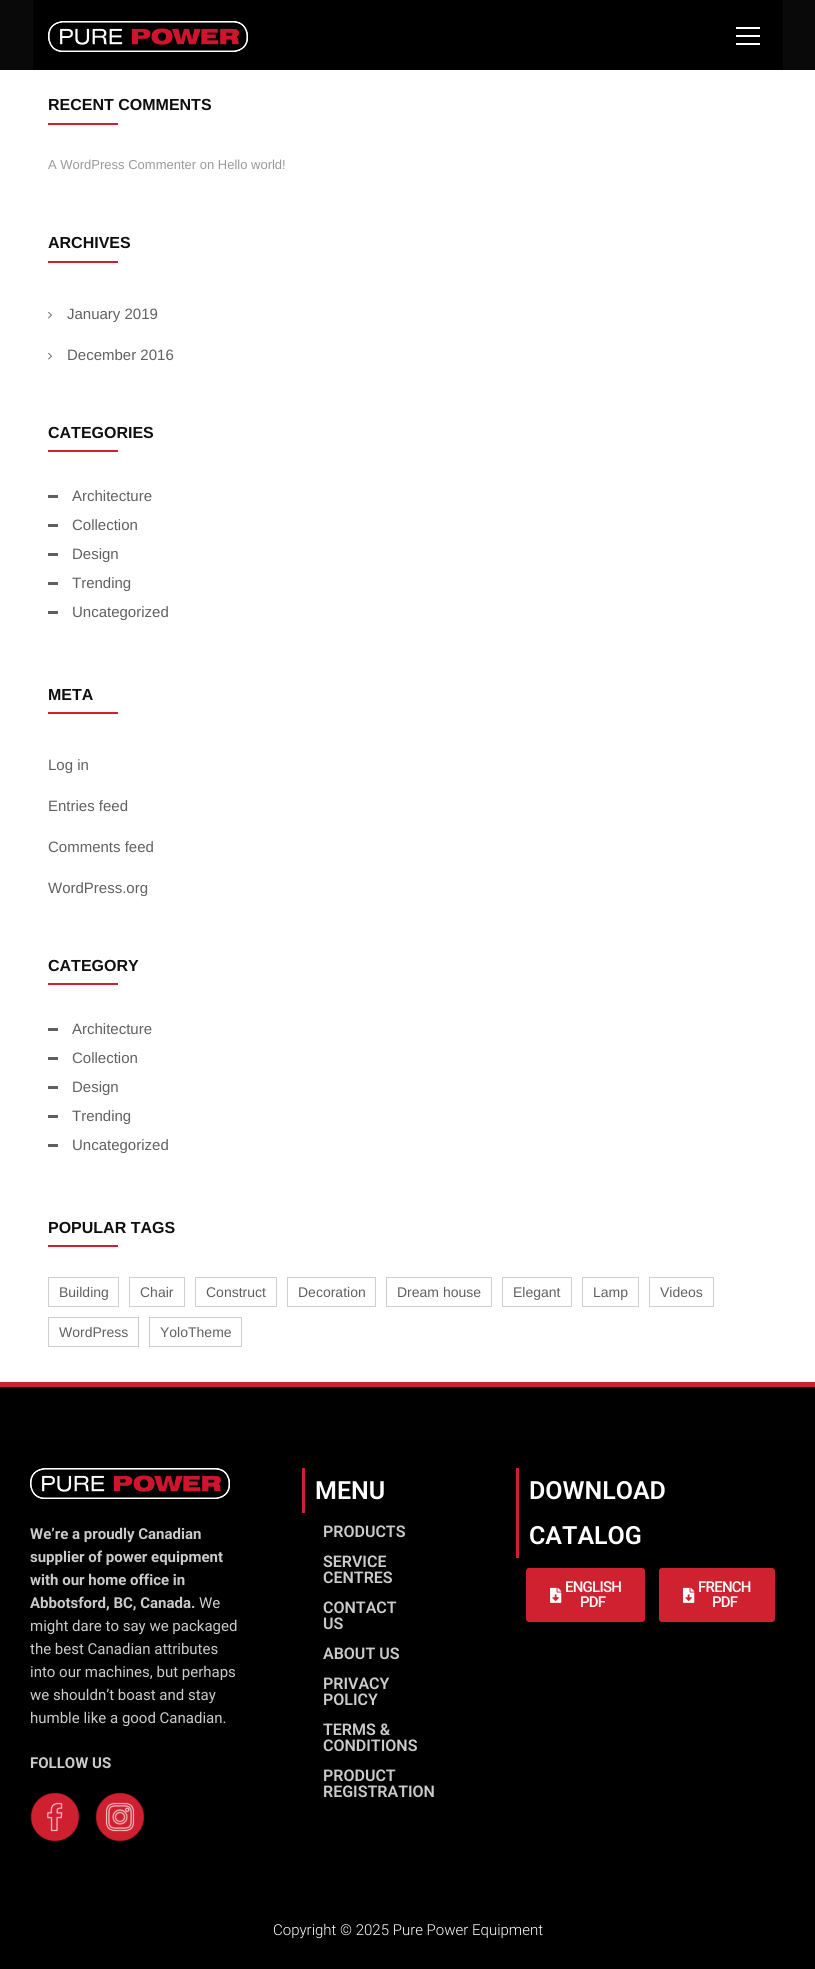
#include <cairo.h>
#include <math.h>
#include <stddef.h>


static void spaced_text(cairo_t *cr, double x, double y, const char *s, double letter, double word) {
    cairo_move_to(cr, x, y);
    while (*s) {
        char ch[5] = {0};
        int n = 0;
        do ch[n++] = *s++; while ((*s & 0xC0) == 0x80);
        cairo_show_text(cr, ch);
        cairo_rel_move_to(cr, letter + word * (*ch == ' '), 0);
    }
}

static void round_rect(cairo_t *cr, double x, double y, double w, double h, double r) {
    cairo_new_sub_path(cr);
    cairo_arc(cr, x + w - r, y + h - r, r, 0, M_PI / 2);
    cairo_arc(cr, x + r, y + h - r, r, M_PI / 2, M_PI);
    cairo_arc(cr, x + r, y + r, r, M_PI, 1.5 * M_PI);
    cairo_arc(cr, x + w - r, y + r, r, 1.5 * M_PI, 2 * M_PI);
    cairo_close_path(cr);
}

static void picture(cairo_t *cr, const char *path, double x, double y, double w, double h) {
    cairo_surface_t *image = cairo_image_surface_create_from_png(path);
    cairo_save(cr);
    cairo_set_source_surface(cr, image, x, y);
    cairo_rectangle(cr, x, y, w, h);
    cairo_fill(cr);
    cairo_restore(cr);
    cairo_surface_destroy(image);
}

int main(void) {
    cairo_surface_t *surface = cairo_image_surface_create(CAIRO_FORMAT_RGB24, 815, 1969);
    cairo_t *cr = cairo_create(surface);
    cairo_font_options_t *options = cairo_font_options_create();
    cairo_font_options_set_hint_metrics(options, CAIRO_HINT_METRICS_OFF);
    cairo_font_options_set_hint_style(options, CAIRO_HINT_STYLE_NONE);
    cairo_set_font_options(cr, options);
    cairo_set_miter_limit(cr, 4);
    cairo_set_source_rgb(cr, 1, 1, 1);
    cairo_paint(cr);
    cairo_set_source_rgb(cr, 0.039, 0.039, 0.039);
    cairo_rectangle(cr, 0, 0, 815, 70);
    cairo_fill(cr);
    cairo_set_source_rgb(cr, 0, 0, 0);
    cairo_rectangle(cr, 33, 0, 750, 70);
    cairo_fill(cr);
    picture(cr, "img1.png", 48, 21, 200, 31);
    cairo_set_source_rgb(cr, 1, 1, 1);
    cairo_rectangle(cr, 736, 27, 24, 2);
    cairo_fill(cr);
    cairo_rectangle(cr, 736, 35, 24, 2);
    cairo_fill(cr);
    cairo_rectangle(cr, 736, 43, 24, 2);
    cairo_fill(cr);
    cairo_select_font_face(cr, "Liberation Sans", CAIRO_FONT_SLANT_NORMAL, CAIRO_FONT_WEIGHT_BOLD);
    cairo_set_font_size(cr, 16);
    cairo_set_source_rgb(cr, 0.059, 0.059, 0.059);
    cairo_move_to(cr, 48, 110);
    cairo_show_text(cr, "RECENT COMMENTS");
    cairo_set_source_rgb(cr, 0.816, 0.125, 0.188);
    cairo_rectangle(cr, 48, 123, 70, 2);
    cairo_fill(cr);
    cairo_select_font_face(cr, "Liberation Sans", CAIRO_FONT_SLANT_NORMAL, CAIRO_FONT_WEIGHT_NORMAL);
    cairo_set_font_size(cr, 13);
    cairo_set_source_rgb(cr, 0.6, 0.6, 0.6);
    cairo_move_to(cr, 48, 169);
    cairo_show_text(cr, "A WordPress Commenter on Hello world!");
    cairo_select_font_face(cr, "Liberation Sans", CAIRO_FONT_SLANT_NORMAL, CAIRO_FONT_WEIGHT_BOLD);
    cairo_set_font_size(cr, 16);
    cairo_set_source_rgb(cr, 0.059, 0.059, 0.059);
    cairo_move_to(cr, 48, 248);
    cairo_show_text(cr, "ARCHIVES");
    cairo_set_source_rgb(cr, 0.816, 0.125, 0.188);
    cairo_rectangle(cr, 48, 261, 70, 2);
    cairo_fill(cr);
    picture(cr, "img2.png", 48, 311, 4, 8);
    cairo_select_font_face(cr, "Liberation Sans", CAIRO_FONT_SLANT_NORMAL, CAIRO_FONT_WEIGHT_NORMAL);
    cairo_set_font_size(cr, 15);
    cairo_set_source_rgb(cr, 0.376, 0.376, 0.376);
    cairo_move_to(cr, 67, 319);
    cairo_show_text(cr, "January 2019");
    picture(cr, "img2.png", 48, 352, 4, 8);
    cairo_move_to(cr, 67, 360);
    cairo_show_text(cr, "December 2016");
    cairo_select_font_face(cr, "Liberation Sans", CAIRO_FONT_SLANT_NORMAL, CAIRO_FONT_WEIGHT_BOLD);
    cairo_set_font_size(cr, 16);
    cairo_set_source_rgb(cr, 0.059, 0.059, 0.059);
    cairo_move_to(cr, 48, 438);
    cairo_show_text(cr, "CATEGORIES");
    cairo_set_source_rgb(cr, 0.816, 0.125, 0.188);
    cairo_rectangle(cr, 48, 450, 70, 2);
    cairo_fill(cr);
    cairo_set_source_rgb(cr, 0.376, 0.376, 0.376);
    cairo_rectangle(cr, 48, 495, 10, 3);
    cairo_fill(cr);
    cairo_select_font_face(cr, "Liberation Sans", CAIRO_FONT_SLANT_NORMAL, CAIRO_FONT_WEIGHT_NORMAL);
    cairo_set_font_size(cr, 15);
    cairo_move_to(cr, 72, 501);
    cairo_show_text(cr, "Architecture");
    cairo_rectangle(cr, 48, 524, 10, 3);
    cairo_fill(cr);
    cairo_move_to(cr, 72, 530);
    cairo_show_text(cr, "Collection");
    cairo_rectangle(cr, 48, 553, 10, 3);
    cairo_fill(cr);
    cairo_move_to(cr, 72, 559);
    cairo_show_text(cr, "Design");
    cairo_rectangle(cr, 48, 582, 10, 3);
    cairo_fill(cr);
    cairo_move_to(cr, 72, 588);
    cairo_show_text(cr, "Trending");
    cairo_rectangle(cr, 48, 611, 10, 3);
    cairo_fill(cr);
    cairo_move_to(cr, 72, 617);
    cairo_show_text(cr, "Uncategorized");
    cairo_select_font_face(cr, "Liberation Sans", CAIRO_FONT_SLANT_NORMAL, CAIRO_FONT_WEIGHT_BOLD);
    cairo_set_font_size(cr, 16);
    cairo_set_source_rgb(cr, 0.059, 0.059, 0.059);
    cairo_move_to(cr, 48, 700);
    cairo_show_text(cr, "META");
    cairo_set_source_rgb(cr, 0.816, 0.125, 0.188);
    cairo_rectangle(cr, 48, 712, 70, 2);
    cairo_fill(cr);
    cairo_select_font_face(cr, "Liberation Sans", CAIRO_FONT_SLANT_NORMAL, CAIRO_FONT_WEIGHT_NORMAL);
    cairo_set_font_size(cr, 15);
    cairo_set_source_rgb(cr, 0.376, 0.376, 0.376);
    cairo_move_to(cr, 48, 770);
    cairo_show_text(cr, "Log in");
    cairo_move_to(cr, 48, 811);
    cairo_show_text(cr, "Entries feed");
    cairo_move_to(cr, 48, 852);
    cairo_show_text(cr, "Comments feed");
    cairo_move_to(cr, 48, 893);
    cairo_show_text(cr, "WordPress.org");
    cairo_select_font_face(cr, "Liberation Sans", CAIRO_FONT_SLANT_NORMAL, CAIRO_FONT_WEIGHT_BOLD);
    cairo_set_font_size(cr, 16);
    cairo_set_source_rgb(cr, 0.059, 0.059, 0.059);
    cairo_move_to(cr, 48, 971);
    cairo_show_text(cr, "CATEGORY");
    cairo_set_source_rgb(cr, 0.816, 0.125, 0.188);
    cairo_rectangle(cr, 48, 983, 70, 2);
    cairo_fill(cr);
    cairo_set_source_rgb(cr, 0.376, 0.376, 0.376);
    cairo_rectangle(cr, 48, 1028, 10, 3);
    cairo_fill(cr);
    cairo_select_font_face(cr, "Liberation Sans", CAIRO_FONT_SLANT_NORMAL, CAIRO_FONT_WEIGHT_NORMAL);
    cairo_set_font_size(cr, 15);
    cairo_move_to(cr, 72, 1034);
    cairo_show_text(cr, "Architecture");
    cairo_rectangle(cr, 48, 1057, 10, 3);
    cairo_fill(cr);
    cairo_move_to(cr, 72, 1063);
    cairo_show_text(cr, "Collection");
    cairo_rectangle(cr, 48, 1086, 10, 3);
    cairo_fill(cr);
    cairo_move_to(cr, 72, 1092);
    cairo_show_text(cr, "Design");
    cairo_rectangle(cr, 48, 1115, 10, 3);
    cairo_fill(cr);
    cairo_move_to(cr, 72, 1121);
    cairo_show_text(cr, "Trending");
    cairo_rectangle(cr, 48, 1144, 10, 3);
    cairo_fill(cr);
    cairo_move_to(cr, 72, 1150);
    cairo_show_text(cr, "Uncategorized");
    cairo_select_font_face(cr, "Liberation Sans", CAIRO_FONT_SLANT_NORMAL, CAIRO_FONT_WEIGHT_BOLD);
    cairo_set_font_size(cr, 16);
    cairo_set_source_rgb(cr, 0.059, 0.059, 0.059);
    cairo_move_to(cr, 48, 1233);
    cairo_show_text(cr, "POPULAR TAGS");
    cairo_set_source_rgb(cr, 0.816, 0.125, 0.188);
    cairo_rectangle(cr, 48, 1245, 70, 2);
    cairo_fill(cr);
    cairo_rectangle(cr, 48.5, 1277.5, 70, 29);
    cairo_set_source_rgb(cr, 0.812, 0.812, 0.812);
    cairo_set_line_width(cr, 1);
    cairo_stroke(cr);
    cairo_select_font_face(cr, "Liberation Sans", CAIRO_FONT_SLANT_NORMAL, CAIRO_FONT_WEIGHT_NORMAL);
    cairo_set_font_size(cr, 14);
    cairo_set_source_rgb(cr, 0.376, 0.376, 0.376);
    cairo_move_to(cr, 59, 1297);
    cairo_show_text(cr, "Building");
    cairo_rectangle(cr, 129.5, 1277.5, 55, 29);
    cairo_set_source_rgb(cr, 0.812, 0.812, 0.812);
    cairo_stroke(cr);
    cairo_set_source_rgb(cr, 0.376, 0.376, 0.376);
    cairo_move_to(cr, 140, 1297);
    cairo_show_text(cr, "Chair");
    cairo_rectangle(cr, 195.5, 1277.5, 81, 29);
    cairo_set_source_rgb(cr, 0.812, 0.812, 0.812);
    cairo_stroke(cr);
    cairo_set_source_rgb(cr, 0.376, 0.376, 0.376);
    cairo_move_to(cr, 206, 1297);
    cairo_show_text(cr, "Construct");
    cairo_rectangle(cr, 287.5, 1277.5, 88, 29);
    cairo_set_source_rgb(cr, 0.812, 0.812, 0.812);
    cairo_stroke(cr);
    cairo_set_source_rgb(cr, 0.376, 0.376, 0.376);
    cairo_move_to(cr, 298, 1297);
    cairo_show_text(cr, "Decoration");
    cairo_rectangle(cr, 386.5, 1277.5, 105, 29);
    cairo_set_source_rgb(cr, 0.812, 0.812, 0.812);
    cairo_stroke(cr);
    cairo_set_source_rgb(cr, 0.376, 0.376, 0.376);
    cairo_move_to(cr, 397, 1297);
    cairo_show_text(cr, "Dream house");
    cairo_rectangle(cr, 502.5, 1277.5, 69, 29);
    cairo_set_source_rgb(cr, 0.812, 0.812, 0.812);
    cairo_stroke(cr);
    cairo_set_source_rgb(cr, 0.376, 0.376, 0.376);
    cairo_move_to(cr, 513, 1297);
    cairo_show_text(cr, "Elegant");
    cairo_rectangle(cr, 582.5, 1277.5, 56, 29);
    cairo_set_source_rgb(cr, 0.812, 0.812, 0.812);
    cairo_stroke(cr);
    cairo_set_source_rgb(cr, 0.376, 0.376, 0.376);
    cairo_move_to(cr, 593, 1297);
    cairo_show_text(cr, "Lamp");
    cairo_rectangle(cr, 649.5, 1277.5, 64, 29);
    cairo_set_source_rgb(cr, 0.812, 0.812, 0.812);
    cairo_stroke(cr);
    cairo_set_source_rgb(cr, 0.376, 0.376, 0.376);
    cairo_move_to(cr, 660, 1297);
    cairo_show_text(cr, "Videos");
    cairo_rectangle(cr, 48.5, 1317.5, 90, 29);
    cairo_set_source_rgb(cr, 0.812, 0.812, 0.812);
    cairo_stroke(cr);
    cairo_set_source_rgb(cr, 0.376, 0.376, 0.376);
    cairo_move_to(cr, 59, 1337);
    cairo_show_text(cr, "WordPress");
    cairo_rectangle(cr, 149.5, 1317.5, 92, 29);
    cairo_set_source_rgb(cr, 0.812, 0.812, 0.812);
    cairo_stroke(cr);
    cairo_set_source_rgb(cr, 0.376, 0.376, 0.376);
    cairo_move_to(cr, 160, 1337);
    cairo_show_text(cr, "YoloTheme");
    cairo_set_source_rgb(cr, 0.812, 0.125, 0.188);
    cairo_rectangle(cr, 0, 1382, 815, 5);
    cairo_fill(cr);
    cairo_set_source_rgb(cr, 0.008, 0.004, 0.004);
    cairo_rectangle(cr, 0, 1387, 815, 51);
    cairo_fill(cr);
    cairo_set_source_rgb(cr, 0, 0, 0);
    cairo_rectangle(cr, 0, 1438, 815, 531);
    cairo_fill(cr);
    picture(cr, "img3.png", 30, 1468, 200, 31);
    cairo_select_font_face(cr, "Roboto", CAIRO_FONT_SLANT_NORMAL, CAIRO_FONT_WEIGHT_BOLD);
    cairo_set_font_size(cr, 15);
    cairo_set_source_rgb(cr, 0.796, 0.796, 0.796);
    cairo_move_to(cr, 30, 1539);
    cairo_show_text(cr, "We’re a proudly Canadian");
    cairo_move_to(cr, 30, 1562);
    cairo_show_text(cr, "supplier of power equipment");
    cairo_move_to(cr, 30, 1585);
    cairo_show_text(cr, "with our home office in");
    cairo_move_to(cr, 30, 1608);
    cairo_show_text(cr, "Abbotsford, BC, Canada.");
    cairo_select_font_face(cr, "Roboto", CAIRO_FONT_SLANT_NORMAL, CAIRO_FONT_WEIGHT_NORMAL);
    cairo_move_to(cr, 199, 1608);
    cairo_show_text(cr, "We");
    cairo_move_to(cr, 30, 1631);
    cairo_show_text(cr, "might dare to say we packaged");
    cairo_move_to(cr, 30, 1654);
    cairo_show_text(cr, "the best Canadian attributes");
    cairo_move_to(cr, 30, 1677);
    cairo_show_text(cr, "into our machines, but perhaps");
    cairo_move_to(cr, 30, 1700);
    cairo_show_text(cr, "we shouldn’t boast and stay");
    cairo_move_to(cr, 30, 1723);
    cairo_show_text(cr, "humble like a good Canadian.");
    cairo_select_font_face(cr, "Roboto", CAIRO_FONT_SLANT_NORMAL, CAIRO_FONT_WEIGHT_BOLD);
    cairo_move_to(cr, 30, 1768);
    cairo_show_text(cr, "FOLLOW US");
    picture(cr, "img4.png", 30, 1792, 50, 50);
    picture(cr, "img5.png", 95, 1792, 50, 50);
    cairo_set_source_rgb(cr, 0.812, 0.125, 0.188);
    cairo_rectangle(cr, 302, 1468, 3, 45);
    cairo_fill(cr);
    cairo_select_font_face(cr, "Roboto SemiBold", CAIRO_FONT_SLANT_NORMAL, CAIRO_FONT_WEIGHT_NORMAL);
    cairo_set_font_size(cr, 25);
    cairo_set_source_rgb(cr, 1, 1, 1);
    cairo_move_to(cr, 315, 1499);
    cairo_show_text(cr, "MENU");
    cairo_set_font_size(cr, 16);
    cairo_set_source_rgb(cr, 0.796, 0.796, 0.796);
    cairo_move_to(cr, 323, 1537);
    cairo_show_text(cr, "PRODUCTS");
    cairo_move_to(cr, 323, 1567);
    cairo_show_text(cr, "SERVICE");
    cairo_move_to(cr, 323, 1583);
    cairo_show_text(cr, "CENTRES");
    cairo_move_to(cr, 323, 1613);
    cairo_show_text(cr, "CONTACT");
    cairo_move_to(cr, 323, 1629);
    cairo_show_text(cr, "US");
    cairo_move_to(cr, 323, 1659);
    cairo_show_text(cr, "ABOUT US");
    cairo_move_to(cr, 323, 1689);
    cairo_show_text(cr, "PRIVACY");
    cairo_move_to(cr, 323, 1705);
    cairo_show_text(cr, "POLICY");
    cairo_move_to(cr, 323, 1735);
    cairo_show_text(cr, "TERMS &");
    cairo_move_to(cr, 323, 1751);
    cairo_show_text(cr, "CONDITIONS");
    cairo_move_to(cr, 323, 1781);
    cairo_show_text(cr, "PRODUCT");
    cairo_move_to(cr, 323, 1797);
    cairo_show_text(cr, "REGISTRATION");
    cairo_set_source_rgb(cr, 0.812, 0.125, 0.188);
    cairo_rectangle(cr, 516, 1468, 3, 90);
    cairo_fill(cr);
    cairo_set_font_size(cr, 25);
    cairo_set_source_rgb(cr, 1, 1, 1);
    cairo_move_to(cr, 529, 1499);
    cairo_show_text(cr, "DOWNLOAD");
    cairo_move_to(cr, 529, 1544);
    cairo_show_text(cr, "CATALOG");
    cairo_set_source_rgb(cr, 0.812, 0.129, 0.188);
    round_rect(cr, 526, 1568, 119, 54, 3);
    cairo_fill(cr);
    picture(cr, "img6.png", 550, 1587, 12, 16);
    cairo_select_font_face(cr, "Roboto Medium", CAIRO_FONT_SLANT_NORMAL, CAIRO_FONT_WEIGHT_NORMAL);
    cairo_set_font_size(cr, 15);
    cairo_set_source_rgb(cr, 1, 1, 1);
    spaced_text(cr, 565, 1592, "ENGLISH", -0.75, 0);
    spaced_text(cr, 580, 1607, "PDF", -0.75, 0);
    cairo_set_source_rgb(cr, 0.812, 0.129, 0.188);
    round_rect(cr, 659, 1568, 116, 54, 3);
    cairo_fill(cr);
    picture(cr, "img6.png", 683, 1587, 12, 16);
    cairo_set_source_rgb(cr, 1, 1, 1);
    spaced_text(cr, 698, 1592, "FRENCH", -0.75, 0);
    spaced_text(cr, 712, 1607, "PDF", -0.75, 0);
    cairo_select_font_face(cr, "Roboto Light", CAIRO_FONT_SLANT_NORMAL, CAIRO_FONT_WEIGHT_NORMAL);
    cairo_move_to(cr, 273, 1935);
    cairo_show_text(cr, "Copyright © 2025 Pure Power Equipment");
    cairo_surface_write_to_png(surface, "page.png");
    cairo_font_options_destroy(options);
    cairo_destroy(cr);
    cairo_surface_destroy(surface);
    return 0;
}
